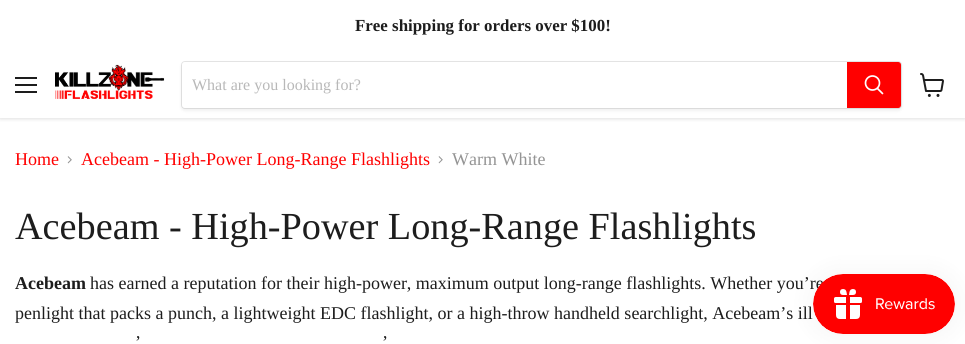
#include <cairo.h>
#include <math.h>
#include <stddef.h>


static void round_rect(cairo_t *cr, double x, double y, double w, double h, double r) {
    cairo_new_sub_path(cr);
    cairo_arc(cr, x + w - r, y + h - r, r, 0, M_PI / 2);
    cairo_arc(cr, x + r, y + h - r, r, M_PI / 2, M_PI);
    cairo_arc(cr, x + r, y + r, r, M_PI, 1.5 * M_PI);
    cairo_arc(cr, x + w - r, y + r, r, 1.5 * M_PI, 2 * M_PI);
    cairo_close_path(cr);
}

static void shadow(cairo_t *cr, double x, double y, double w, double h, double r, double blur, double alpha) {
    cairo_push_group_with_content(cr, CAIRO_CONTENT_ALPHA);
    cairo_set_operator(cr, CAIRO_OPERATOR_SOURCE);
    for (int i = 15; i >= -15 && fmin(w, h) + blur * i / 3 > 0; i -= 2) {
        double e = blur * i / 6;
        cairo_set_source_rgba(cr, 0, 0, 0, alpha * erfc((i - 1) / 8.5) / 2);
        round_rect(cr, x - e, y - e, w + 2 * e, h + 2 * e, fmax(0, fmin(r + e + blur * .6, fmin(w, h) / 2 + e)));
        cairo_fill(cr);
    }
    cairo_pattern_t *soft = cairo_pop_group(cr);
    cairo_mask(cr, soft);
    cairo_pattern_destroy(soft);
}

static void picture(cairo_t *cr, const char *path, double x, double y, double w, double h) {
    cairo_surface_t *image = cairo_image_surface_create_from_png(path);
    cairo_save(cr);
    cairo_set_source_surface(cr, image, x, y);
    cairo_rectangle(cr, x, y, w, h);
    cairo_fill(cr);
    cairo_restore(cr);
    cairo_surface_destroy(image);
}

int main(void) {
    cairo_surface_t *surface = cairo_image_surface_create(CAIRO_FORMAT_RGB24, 965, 344);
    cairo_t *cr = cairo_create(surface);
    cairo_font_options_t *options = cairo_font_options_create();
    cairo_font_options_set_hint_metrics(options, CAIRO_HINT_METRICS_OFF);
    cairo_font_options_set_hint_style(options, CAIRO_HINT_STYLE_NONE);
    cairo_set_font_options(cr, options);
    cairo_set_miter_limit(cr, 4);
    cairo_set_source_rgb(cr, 1, 1, 1);
    cairo_paint(cr);
    cairo_save(cr);
    cairo_rectangle(cr, 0, 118, 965, 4);
    cairo_clip(cr);
    cairo_set_source_rgb(cr, 0.502, 0.502, 0.502);
    shadow(cr, 0, 53, 965, 66, 0, 2, 0.25);
    cairo_restore(cr);
    cairo_set_source_rgb(cr, 1, 1, 1);
    cairo_rectangle(cr, 0, 50, 965, 2);
    cairo_fill(cr);
    cairo_select_font_face(cr, "Liberation Serif", CAIRO_FONT_SLANT_NORMAL, CAIRO_FONT_WEIGHT_BOLD);
    cairo_set_font_size(cr, 16.9);
    cairo_set_source_rgb(cr, 0.114, 0.114, 0.114);
    cairo_move_to(cr, 355, 31);
    cairo_show_text(cr, "Free shipping for orders over $100!");
    cairo_rectangle(cr, 15, 77, 22, 2);
    cairo_fill(cr);
    cairo_rectangle(cr, 15, 84, 22, 2);
    cairo_fill(cr);
    cairo_rectangle(cr, 15, 91, 22, 2);
    cairo_fill(cr);
    picture(cr, "img1.png", 55, 64, 110, 35);
    cairo_set_source_rgb(cr, 0.502, 0.502, 0.502);
    shadow(cr, 181, 63, 721, 48, 4, 1.5, 0.11);
    round_rect(cr, 181.5, 61.5, 720, 47, 3.5);
    cairo_set_source_rgba(cr, 0.502, 0.502, 0.502, 0.2);
    cairo_set_line_width(cr, 1);
    cairo_stroke(cr);
    cairo_set_source_rgb(cr, 1, 1, 1);
    cairo_new_path(cr);
    cairo_move_to(cr, 185, 62);
    cairo_line_to(cr, 847, 62);
    cairo_line_to(cr, 847, 108);
    cairo_line_to(cr, 185, 108);
    cairo_curve_to(cr, 183.5, 108, 182, 106.5, 182, 105);
    cairo_line_to(cr, 182, 65);
    cairo_curve_to(cr, 182, 63.5, 183.5, 62, 185, 62);
    cairo_close_path(cr);
    cairo_fill(cr);
    cairo_select_font_face(cr, "Liberation Serif", CAIRO_FONT_SLANT_NORMAL, CAIRO_FONT_WEIGHT_NORMAL);
    cairo_set_font_size(cr, 16);
    cairo_set_source_rgb(cr, 0.722, 0.722, 0.722);
    cairo_move_to(cr, 192, 90);
    cairo_show_text(cr, "What are you looking for?");
    cairo_set_source_rgb(cr, 1, 0, 0);
    cairo_new_path(cr);
    cairo_move_to(cr, 847.5, 62.5);
    cairo_line_to(cr, 898, 62.5);
    cairo_curve_to(cr, 899.5, 62.5, 900.5, 63.5, 900.5, 65);
    cairo_line_to(cr, 900.5, 105);
    cairo_curve_to(cr, 900.5, 106.5, 899.5, 107.5, 898, 107.5);
    cairo_line_to(cr, 847.5, 107.5);
    cairo_close_path(cr);
    cairo_fill_preserve(cr);
    cairo_stroke(cr);
    cairo_new_path(cr);
    cairo_move_to(cr, 882.5, 93.5);
    cairo_line_to(cr, 877.5, 88.5);
    cairo_set_source_rgb(cr, 1, 1, 1);
    cairo_set_line_width(cr, 1.7);
    cairo_set_line_cap(cr, CAIRO_LINE_CAP_ROUND);
    cairo_stroke(cr);
    cairo_arc(cr, 872.5, 83, 7, 0, 2 * M_PI);
    cairo_set_line_cap(cr, CAIRO_LINE_CAP_BUTT);
    cairo_stroke(cr);
    picture(cr, "img2.png", 920, 73, 24, 24);
    cairo_set_font_size(cr, 18);
    cairo_set_source_rgb(cr, 1, 0, 0);
    cairo_move_to(cr, 15, 165);
    cairo_show_text(cr, "Home");
    picture(cr, "img3.png", 67, 156, 5, 8);
    cairo_move_to(cr, 81, 165);
    cairo_show_text(cr, "Acebeam - High-Power Long-Range Flashlights");
    picture(cr, "img4.png", 438, 156, 5, 8);
    cairo_set_source_rgb(cr, 0.58, 0.58, 0.58);
    cairo_move_to(cr, 452, 165);
    cairo_show_text(cr, "Warm White");
    cairo_set_font_size(cr, 38.25);
    cairo_set_source_rgb(cr, 0.114, 0.114, 0.114);
    cairo_move_to(cr, 15, 239);
    cairo_show_text(cr, "Acebeam - High-Power Long-Range Flashlights");
    cairo_select_font_face(cr, "Liberation Serif", CAIRO_FONT_SLANT_NORMAL, CAIRO_FONT_WEIGHT_BOLD);
    cairo_set_font_size(cr, 18);
    cairo_move_to(cr, 15, 289);
    cairo_show_text(cr, "Acebeam");
    cairo_select_font_face(cr, "Liberation Serif", CAIRO_FONT_SLANT_NORMAL, CAIRO_FONT_WEIGHT_NORMAL);
    cairo_move_to(cr, 90, 289);
    cairo_show_text(cr, "has earned a reputation for their high-power, maximum output long-range flashlights. Whether you’re");
    cairo_move_to(cr, 15, 319);
    cairo_show_text(cr, "penlight that packs a punch, a lightweight EDC flashlight, or a high-throw handheld searchlight, Acebeam’s ill");
    cairo_move_to(cr, 135, 348);
    cairo_show_text(cr, "’");
    cairo_move_to(cr, 382, 348);
    cairo_show_text(cr, "’");
    cairo_set_source_rgb(cr, 0, 0, 0);
    shadow(cr, 813, 274, 142, 60, 30, 12.5, 0.05);
    picture(cr, "img5.png", 813, 274, 142, 60);
    cairo_surface_write_to_png(surface, "page.png");
    cairo_font_options_destroy(options);
    cairo_destroy(cr);
    cairo_surface_destroy(surface);
    return 0;
}
